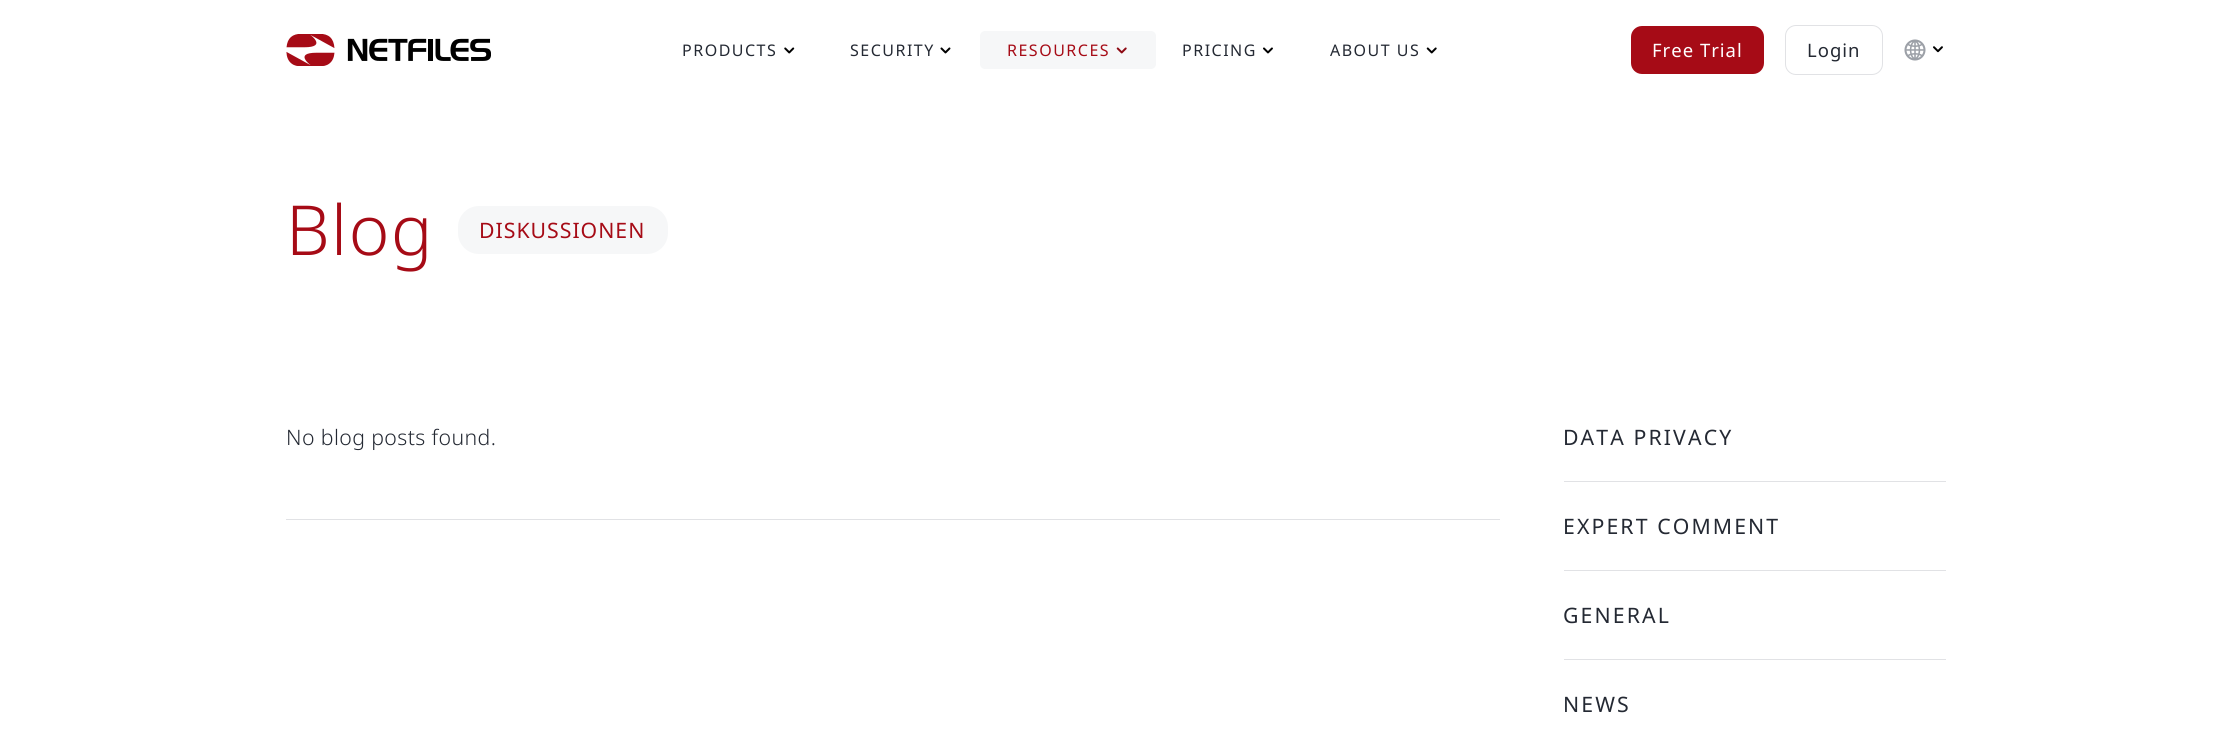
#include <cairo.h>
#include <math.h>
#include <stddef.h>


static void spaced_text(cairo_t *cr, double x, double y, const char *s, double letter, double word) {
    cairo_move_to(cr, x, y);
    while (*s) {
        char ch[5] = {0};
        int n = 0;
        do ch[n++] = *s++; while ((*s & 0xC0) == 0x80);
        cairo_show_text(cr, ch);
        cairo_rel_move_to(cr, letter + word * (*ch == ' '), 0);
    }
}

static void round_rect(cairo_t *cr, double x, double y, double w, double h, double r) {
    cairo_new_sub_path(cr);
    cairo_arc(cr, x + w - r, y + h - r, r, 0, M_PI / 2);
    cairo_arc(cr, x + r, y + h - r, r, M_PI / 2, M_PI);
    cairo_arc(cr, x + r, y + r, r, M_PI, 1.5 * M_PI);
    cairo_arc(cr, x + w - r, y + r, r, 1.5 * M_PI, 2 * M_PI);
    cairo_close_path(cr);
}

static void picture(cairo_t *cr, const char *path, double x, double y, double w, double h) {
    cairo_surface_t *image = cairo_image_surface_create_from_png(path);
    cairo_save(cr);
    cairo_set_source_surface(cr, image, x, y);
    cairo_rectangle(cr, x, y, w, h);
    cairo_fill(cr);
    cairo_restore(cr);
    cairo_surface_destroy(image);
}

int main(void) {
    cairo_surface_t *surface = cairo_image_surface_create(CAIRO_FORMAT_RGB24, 2231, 747);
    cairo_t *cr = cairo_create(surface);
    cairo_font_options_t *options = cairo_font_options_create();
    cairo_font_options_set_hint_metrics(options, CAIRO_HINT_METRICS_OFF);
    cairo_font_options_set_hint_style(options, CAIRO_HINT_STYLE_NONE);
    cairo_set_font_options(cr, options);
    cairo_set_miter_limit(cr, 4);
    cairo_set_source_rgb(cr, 1, 1, 1);
    cairo_paint(cr);
    picture(cr, "img1.png", 286, 34, 205, 32);
    picture(cr, "img2.png", 784, 47, 11, 7);
    cairo_select_font_face(cr, "Noto Sans", CAIRO_FONT_SLANT_NORMAL, CAIRO_FONT_WEIGHT_NORMAL);
    cairo_set_font_size(cr, 16);
    cairo_set_source_rgb(cr, 0.141, 0.161, 0.2);
    spaced_text(cr, 682, 56, "PRODUCTS", 1.5, 0);
    picture(cr, "img3.png", 940, 47, 11, 7);
    spaced_text(cr, 850, 56, "SECURITY", 1.5, 0);
    cairo_set_source_rgb(cr, 0.961, 0.965, 0.969);
    round_rect(cr, 980, 31, 176, 38, 5);
    cairo_fill(cr);
    picture(cr, "img4.png", 1116, 47, 11, 7);
    cairo_set_source_rgb(cr, 0.651, 0.043, 0.086);
    spaced_text(cr, 1007, 56, "RESOURCES", 1.5, 0);
    picture(cr, "img5.png", 1263, 47, 10, 7);
    cairo_set_source_rgb(cr, 0.141, 0.161, 0.2);
    spaced_text(cr, 1182, 56, "PRICING", 1.5, 0);
    picture(cr, "img6.png", 1426, 47, 11, 7);
    spaced_text(cr, 1330, 56, "ABOUT US", 1.5, 0);
    cairo_set_source_rgb(cr, 0.651, 0.043, 0.086);
    round_rect(cr, 1631, 26, 133, 48, 11);
    cairo_fill(cr);
    cairo_set_font_size(cr, 18.5);
    cairo_set_source_rgb(cr, 1, 1, 1);
    spaced_text(cr, 1652, 57, "Free Trial", 1, 0);
    round_rect(cr, 1785.5, 25.5, 97, 49, 10.5);
    cairo_set_source_rgb(cr, 0.882, 0.886, 0.898);
    cairo_set_line_width(cr, 1);
    cairo_stroke(cr);
    cairo_set_source_rgb(cr, 0.141, 0.161, 0.2);
    spaced_text(cr, 1807, 57, "Login", 1, 0);
    picture(cr, "img7.png", 1933, 46, 10, 7);
    picture(cr, "img8.png", 1904, 39, 22, 22);
    cairo_select_font_face(cr, "Noto Sans Light", CAIRO_FONT_SLANT_NORMAL, CAIRO_FONT_WEIGHT_NORMAL);
    cairo_set_font_size(cr, 69);
    cairo_set_source_rgb(cr, 0.651, 0.043, 0.086);
    spaced_text(cr, 286, 255, "Blog", 1.5, 0);
    cairo_set_source_rgb(cr, 0.961, 0.965, 0.969);
    round_rect(cr, 458, 206, 210, 48, 21);
    cairo_fill(cr);
    cairo_select_font_face(cr, "Noto Sans", CAIRO_FONT_SLANT_NORMAL, CAIRO_FONT_WEIGHT_NORMAL);
    cairo_set_font_size(cr, 21.25);
    cairo_set_source_rgb(cr, 0.651, 0.043, 0.086);
    spaced_text(cr, 479, 238, "DISKUSSIONEN", 1, 0);
    cairo_select_font_face(cr, "Noto Sans Light", CAIRO_FONT_SLANT_NORMAL, CAIRO_FONT_WEIGHT_NORMAL);
    cairo_set_source_rgb(cr, 0.141, 0.161, 0.2);
    spaced_text(cr, 286, 445, "No blog posts found.", 0.4, 0);
    cairo_set_source_rgb(cr, 0.882, 0.886, 0.898);
    cairo_rectangle(cr, 286, 519, 1214, 1);
    cairo_fill(cr);
    cairo_rectangle(cr, 1564, 481, 382, 1);
    cairo_fill(cr);
    cairo_select_font_face(cr, "Noto Sans", CAIRO_FONT_SLANT_NORMAL, CAIRO_FONT_WEIGHT_NORMAL);
    cairo_set_source_rgb(cr, 0.141, 0.161, 0.2);
    spaced_text(cr, 1563, 445, "DATA PRIVACY", 2.1, 0);
    cairo_set_source_rgb(cr, 0.882, 0.886, 0.898);
    cairo_rectangle(cr, 1564, 570, 382, 1);
    cairo_fill(cr);
    cairo_set_source_rgb(cr, 0.141, 0.161, 0.2);
    spaced_text(cr, 1563, 534, "EXPERT COMMENT", 2.1, 0);
    cairo_set_source_rgb(cr, 0.882, 0.886, 0.898);
    cairo_rectangle(cr, 1564, 659, 382, 1);
    cairo_fill(cr);
    cairo_set_source_rgb(cr, 0.141, 0.161, 0.2);
    spaced_text(cr, 1563, 623, "GENERAL", 2.1, 0);
    spaced_text(cr, 1563, 712, "NEWS", 2.1, 0);
    cairo_surface_write_to_png(surface, "page.png");
    cairo_font_options_destroy(options);
    cairo_destroy(cr);
    cairo_surface_destroy(surface);
    return 0;
}
